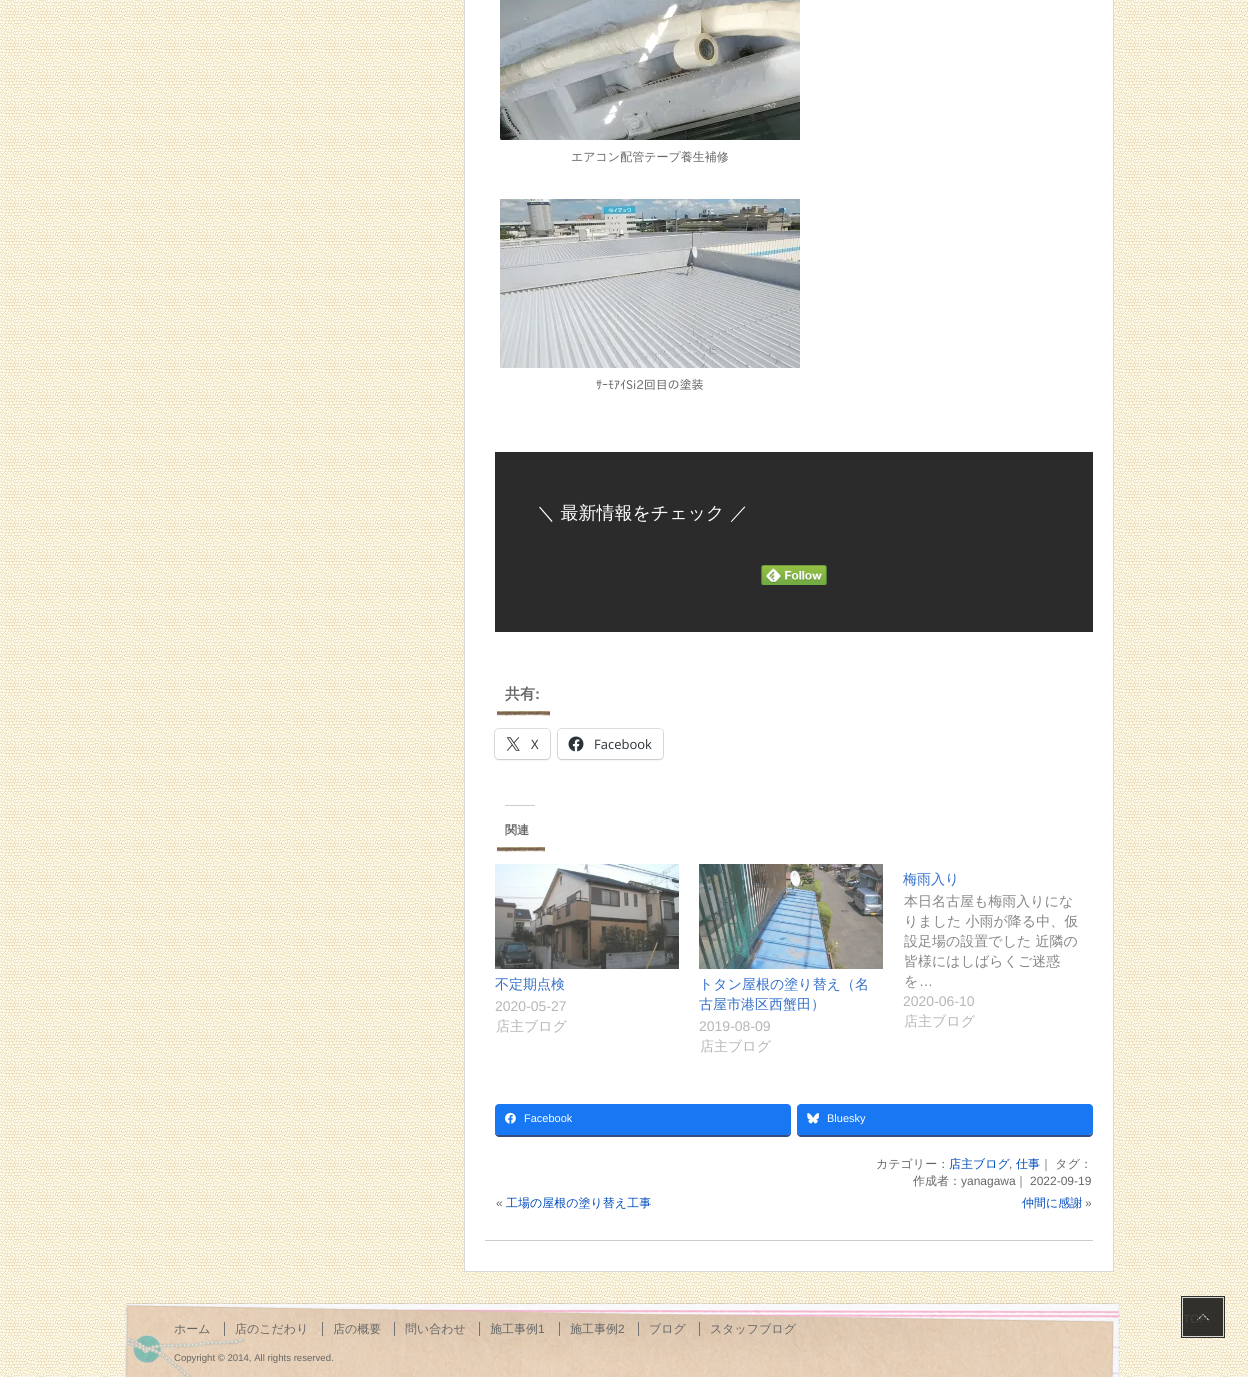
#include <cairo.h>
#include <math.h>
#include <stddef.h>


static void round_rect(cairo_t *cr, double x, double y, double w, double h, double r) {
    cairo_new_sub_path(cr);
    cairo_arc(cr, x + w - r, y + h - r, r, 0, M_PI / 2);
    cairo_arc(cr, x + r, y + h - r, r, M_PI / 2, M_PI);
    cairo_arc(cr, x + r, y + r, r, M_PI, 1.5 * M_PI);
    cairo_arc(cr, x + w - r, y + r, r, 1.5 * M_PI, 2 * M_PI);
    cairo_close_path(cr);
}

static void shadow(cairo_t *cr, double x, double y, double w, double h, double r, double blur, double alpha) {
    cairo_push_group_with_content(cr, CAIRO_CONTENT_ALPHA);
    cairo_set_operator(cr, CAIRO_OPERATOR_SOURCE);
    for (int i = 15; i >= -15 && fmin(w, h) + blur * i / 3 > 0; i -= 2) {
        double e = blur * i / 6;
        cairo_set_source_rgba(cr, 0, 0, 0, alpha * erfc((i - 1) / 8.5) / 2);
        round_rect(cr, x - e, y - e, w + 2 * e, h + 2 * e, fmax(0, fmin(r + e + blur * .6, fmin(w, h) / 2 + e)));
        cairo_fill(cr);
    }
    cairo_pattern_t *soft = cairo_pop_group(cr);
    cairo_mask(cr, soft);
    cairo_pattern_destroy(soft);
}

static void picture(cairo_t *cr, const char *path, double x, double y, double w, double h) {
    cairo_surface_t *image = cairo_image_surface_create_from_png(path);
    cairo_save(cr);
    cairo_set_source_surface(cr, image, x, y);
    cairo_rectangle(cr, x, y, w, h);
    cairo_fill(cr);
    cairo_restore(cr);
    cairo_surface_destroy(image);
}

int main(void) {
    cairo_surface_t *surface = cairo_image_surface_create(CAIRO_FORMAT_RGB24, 1248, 1377);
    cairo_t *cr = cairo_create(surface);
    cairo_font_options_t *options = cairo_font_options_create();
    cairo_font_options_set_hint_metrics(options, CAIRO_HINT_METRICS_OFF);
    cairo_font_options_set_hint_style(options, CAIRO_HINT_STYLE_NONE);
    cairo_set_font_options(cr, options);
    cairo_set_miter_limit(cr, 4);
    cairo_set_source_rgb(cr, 1, 1, 1);
    cairo_paint(cr);
    picture(cr, "img1.png", 0, 0, 1248, 1377);
    cairo_set_source_rgb(cr, 1, 1, 1);
    cairo_rectangle(cr, 464.5, -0.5, 649, 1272);
    cairo_fill_preserve(cr);
    cairo_set_source_rgb(cr, 0.851, 0.851, 0.851);
    cairo_set_line_width(cr, 1);
    cairo_stroke(cr);
    cairo_set_source_rgb(cr, 0.8, 0.8, 0.8);
    cairo_rectangle(cr, 485, 1240, 608, 1);
    cairo_fill(cr);
    picture(cr, "img2.png", 500, 0, 300, 140);
    cairo_select_font_face(cr, "WenQuanYi Zen Hei Medium", CAIRO_FONT_SLANT_NORMAL, CAIRO_FONT_WEIGHT_NORMAL);
    cairo_set_font_size(cr, 12);
    cairo_set_source_rgb(cr, 0.4, 0.4, 0.4);
    cairo_move_to(cr, 571, 161);
    cairo_show_text(cr, "エアコン配管テープ養生補修");
    picture(cr, "img3.png", 500, 199, 300, 169);
    cairo_select_font_face(cr, "IPAPGothic", CAIRO_FONT_SLANT_NORMAL, CAIRO_FONT_WEIGHT_NORMAL);
    cairo_move_to(cr, 596, 389);
    cairo_show_text(cr, "ｻｰﾓｱｲSi2回目の塗装");
    cairo_set_source_rgb(cr, 0.169, 0.169, 0.169);
    cairo_rectangle(cr, 495, 452, 598, 180);
    cairo_fill(cr);
    cairo_select_font_face(cr, "WenQuanYi Zen Hei Medium", CAIRO_FONT_SLANT_NORMAL, CAIRO_FONT_WEIGHT_NORMAL);
    cairo_set_font_size(cr, 18);
    cairo_set_source_rgb(cr, 1, 1, 1);
    cairo_move_to(cr, 537, 519);
    cairo_show_text(cr, "＼ 最新情報をチェック ／");
    picture(cr, "img4.png", 761, 565, 66, 20);
    picture(cr, "img5.png", 497, 711, 53, 5);
    cairo_select_font_face(cr, "WenQuanYi Zen Hei", CAIRO_FONT_SLANT_NORMAL, CAIRO_FONT_WEIGHT_BOLD);
    cairo_set_font_size(cr, 15);
    cairo_set_source_rgb(cr, 0.4, 0.4, 0.4);
    cairo_move_to(cr, 505, 699);
    cairo_show_text(cr, "共有");
    cairo_select_font_face(cr, "Liberation Sans", CAIRO_FONT_SLANT_NORMAL, CAIRO_FONT_WEIGHT_BOLD);
    cairo_move_to(cr, 535, 699);
    cairo_show_text(cr, ":");
    round_rect(cr, 494.5, 728.5, 56, 31, 4.5);
    cairo_set_source_rgb(cr, 0.878, 0.878, 0.878);
    cairo_stroke(cr);
    cairo_set_source_rgb(cr, 0, 0, 0);
    shadow(cr, 495, 730, 55, 30, 4, 1, 0.12);
    cairo_set_source_rgb(cr, 1, 1, 1);
    round_rect(cr, 495, 729, 55, 30, 4);
    cairo_fill(cr);
    picture(cr, "img6.png", 506, 737, 14, 14);
    cairo_select_font_face(cr, "Open Sans", CAIRO_FONT_SLANT_NORMAL, CAIRO_FONT_WEIGHT_NORMAL);
    cairo_set_font_size(cr, 13);
    cairo_set_source_rgb(cr, 0.173, 0.2, 0.22);
    cairo_move_to(cr, 531, 749);
    cairo_show_text(cr, "X");
    round_rect(cr, 557.5, 728.5, 106, 31, 4.5);
    cairo_set_source_rgb(cr, 0.878, 0.878, 0.878);
    cairo_stroke(cr);
    cairo_set_source_rgb(cr, 0, 0, 0);
    shadow(cr, 558, 730, 105, 30, 4, 1, 0.12);
    cairo_set_source_rgb(cr, 1, 1, 1);
    round_rect(cr, 558, 729, 105, 30, 4);
    cairo_fill(cr);
    picture(cr, "img7.png", 568, 736, 16, 16);
    cairo_set_source_rgb(cr, 0.173, 0.2, 0.22);
    cairo_move_to(cr, 594, 749);
    cairo_show_text(cr, "Facebook");
    picture(cr, "img8.png", 497, 847, 48, 5);
    cairo_set_source_rgb(cr, 0.8, 0.8, 0.8);
    cairo_rectangle(cr, 505, 805, 30, 1);
    cairo_fill(cr);
    cairo_select_font_face(cr, "WenQuanYi Zen Hei", CAIRO_FONT_SLANT_NORMAL, CAIRO_FONT_WEIGHT_BOLD);
    cairo_set_font_size(cr, 12);
    cairo_set_source_rgb(cr, 0.4, 0.4, 0.4);
    cairo_move_to(cr, 505, 834);
    cairo_show_text(cr, "関連");
    picture(cr, "img9.png", 495, 864, 184, 105);
    cairo_select_font_face(cr, "WenQuanYi Zen Hei Medium", CAIRO_FONT_SLANT_NORMAL, CAIRO_FONT_WEIGHT_NORMAL);
    cairo_set_font_size(cr, 14);
    cairo_set_source_rgb(cr, 0.2, 0.435, 0.788);
    cairo_move_to(cr, 495, 989);
    cairo_show_text(cr, "不定期点検");
    cairo_select_font_face(cr, "Liberation Sans", CAIRO_FONT_SLANT_NORMAL, CAIRO_FONT_WEIGHT_NORMAL);
    cairo_set_source_rgb(cr, 0.714, 0.714, 0.714);
    cairo_move_to(cr, 495, 1011);
    cairo_show_text(cr, "2020-05-27");
    cairo_select_font_face(cr, "WenQuanYi Zen Hei Medium", CAIRO_FONT_SLANT_NORMAL, CAIRO_FONT_WEIGHT_NORMAL);
    cairo_move_to(cr, 496, 1031);
    cairo_show_text(cr, "店主ブログ");
    picture(cr, "img10.png", 699, 864, 184, 105);
    cairo_set_source_rgb(cr, 0.2, 0.435, 0.788);
    cairo_move_to(cr, 699, 989);
    cairo_show_text(cr, "トタン屋根の塗り替え（名");
    cairo_move_to(cr, 699, 1009);
    cairo_show_text(cr, "古屋市港区西蟹田）");
    cairo_select_font_face(cr, "Liberation Sans", CAIRO_FONT_SLANT_NORMAL, CAIRO_FONT_WEIGHT_NORMAL);
    cairo_set_source_rgb(cr, 0.714, 0.714, 0.714);
    cairo_move_to(cr, 699, 1031);
    cairo_show_text(cr, "2019-08-09");
    cairo_select_font_face(cr, "WenQuanYi Zen Hei Medium", CAIRO_FONT_SLANT_NORMAL, CAIRO_FONT_WEIGHT_NORMAL);
    cairo_move_to(cr, 700, 1051);
    cairo_show_text(cr, "店主ブログ");
    cairo_set_source_rgb(cr, 0.2, 0.435, 0.788);
    cairo_move_to(cr, 903, 884);
    cairo_show_text(cr, "梅雨入り");
    cairo_set_source_rgb(cr, 0.522, 0.522, 0.522);
    cairo_move_to(cr, 904, 906);
    cairo_show_text(cr, "本日名古屋も梅雨入りにな");
    cairo_move_to(cr, 904, 926);
    cairo_show_text(cr, "りました 小雨が降る中、仮");
    cairo_move_to(cr, 904, 946);
    cairo_show_text(cr, "設足場の設置でした 近隣の");
    cairo_move_to(cr, 904, 966);
    cairo_show_text(cr, "皆様にはしばらくご迷惑");
    cairo_move_to(cr, 904, 986);
    cairo_show_text(cr, "を");
    cairo_select_font_face(cr, "Liberation Sans", CAIRO_FONT_SLANT_NORMAL, CAIRO_FONT_WEIGHT_NORMAL);
    cairo_move_to(cr, 919, 986);
    cairo_show_text(cr, "…");
    cairo_set_source_rgb(cr, 0.714, 0.714, 0.714);
    cairo_move_to(cr, 903, 1006);
    cairo_show_text(cr, "2020-06-10");
    cairo_select_font_face(cr, "WenQuanYi Zen Hei Medium", CAIRO_FONT_SLANT_NORMAL, CAIRO_FONT_WEIGHT_NORMAL);
    cairo_move_to(cr, 904, 1026);
    cairo_show_text(cr, "店主ブログ");
    cairo_set_source_rgb(cr, 0.204, 0.306, 0.518);
    cairo_new_path(cr);
    cairo_move_to(cr, 495, 1131);
    cairo_line_to(cr, 495, 1133);
    cairo_curve_to(cr, 495, 1135, 497, 1137, 499, 1137);
    cairo_line_to(cr, 787, 1137);
    cairo_curve_to(cr, 789, 1137, 791, 1135, 791, 1133);
    cairo_line_to(cr, 791, 1131);
    cairo_curve_to(cr, 791, 1133, 789, 1135, 787, 1135);
    cairo_line_to(cr, 499, 1135);
    cairo_curve_to(cr, 497, 1135, 495, 1133, 495, 1131);
    cairo_close_path(cr);
    cairo_fill(cr);
    cairo_set_source_rgb(cr, 0.094, 0.467, 0.949);
    round_rect(cr, 495, 1104, 296, 31, 4);
    cairo_fill(cr);
    picture(cr, "img11.png", 505, 1112, 11, 12);
    cairo_select_font_face(cr, "Liberation Sans", CAIRO_FONT_SLANT_NORMAL, CAIRO_FONT_WEIGHT_NORMAL);
    cairo_set_font_size(cr, 11);
    cairo_set_source_rgb(cr, 1, 1, 1);
    cairo_move_to(cr, 524, 1122);
    cairo_show_text(cr, "Facebook");
    cairo_set_source_rgb(cr, 0.204, 0.306, 0.518);
    cairo_new_path(cr);
    cairo_move_to(cr, 797, 1131);
    cairo_line_to(cr, 797, 1133);
    cairo_curve_to(cr, 797, 1135, 799, 1137, 801, 1137);
    cairo_line_to(cr, 1089, 1137);
    cairo_curve_to(cr, 1091, 1137, 1093, 1135, 1093, 1133);
    cairo_line_to(cr, 1093, 1131);
    cairo_curve_to(cr, 1093, 1133, 1091, 1135, 1089, 1135);
    cairo_line_to(cr, 801, 1135);
    cairo_curve_to(cr, 799, 1135, 797, 1133, 797, 1131);
    cairo_close_path(cr);
    cairo_fill(cr);
    cairo_set_source_rgb(cr, 0.094, 0.467, 0.949);
    round_rect(cr, 797, 1104, 296, 31, 4);
    cairo_fill(cr);
    picture(cr, "img12.png", 807, 1113, 12, 11);
    cairo_set_source_rgb(cr, 1, 1, 1);
    cairo_move_to(cr, 827, 1122);
    cairo_show_text(cr, "Bluesky");
    cairo_select_font_face(cr, "WenQuanYi Zen Hei Medium", CAIRO_FONT_SLANT_NORMAL, CAIRO_FONT_WEIGHT_NORMAL);
    cairo_set_font_size(cr, 12);
    cairo_set_source_rgb(cr, 0.4, 0.4, 0.4);
    cairo_move_to(cr, 876, 1168);
    cairo_show_text(cr, "カテゴリー：");
    cairo_set_source_rgb(cr, 0, 0.294, 0.737);
    cairo_move_to(cr, 949, 1168);
    cairo_show_text(cr, "店主ブログ");
    cairo_select_font_face(cr, "Liberation Sans", CAIRO_FONT_SLANT_NORMAL, CAIRO_FONT_WEIGHT_NORMAL);
    cairo_set_source_rgb(cr, 0.4, 0.4, 0.4);
    cairo_move_to(cr, 1009, 1168);
    cairo_show_text(cr, ",");
    cairo_select_font_face(cr, "WenQuanYi Zen Hei Medium", CAIRO_FONT_SLANT_NORMAL, CAIRO_FONT_WEIGHT_NORMAL);
    cairo_set_source_rgb(cr, 0, 0.294, 0.737);
    cairo_move_to(cr, 1016, 1168);
    cairo_show_text(cr, "仕事");
    cairo_set_source_rgb(cr, 0.4, 0.4, 0.4);
    cairo_move_to(cr, 1040, 1168);
    cairo_show_text(cr, "｜ タグ：");
    cairo_move_to(cr, 913, 1185);
    cairo_show_text(cr, "作成者：");
    cairo_select_font_face(cr, "Liberation Sans", CAIRO_FONT_SLANT_NORMAL, CAIRO_FONT_WEIGHT_NORMAL);
    cairo_move_to(cr, 961, 1185);
    cairo_show_text(cr, "yanagawa");
    cairo_select_font_face(cr, "WenQuanYi Zen Hei Medium", CAIRO_FONT_SLANT_NORMAL, CAIRO_FONT_WEIGHT_NORMAL);
    cairo_move_to(cr, 1015, 1185);
    cairo_show_text(cr, "｜");
    cairo_select_font_face(cr, "Liberation Sans", CAIRO_FONT_SLANT_NORMAL, CAIRO_FONT_WEIGHT_NORMAL);
    cairo_move_to(cr, 1030, 1185);
    cairo_show_text(cr, "2022-09-19");
    cairo_move_to(cr, 496, 1207);
    cairo_show_text(cr, "«");
    cairo_select_font_face(cr, "WenQuanYi Zen Hei Medium", CAIRO_FONT_SLANT_NORMAL, CAIRO_FONT_WEIGHT_NORMAL);
    cairo_set_source_rgb(cr, 0, 0.294, 0.737);
    cairo_move_to(cr, 506, 1207);
    cairo_show_text(cr, "工場の屋根の塗り替え工事");
    cairo_move_to(cr, 1022, 1207);
    cairo_show_text(cr, "仲間に感謝");
    cairo_select_font_face(cr, "Liberation Sans", CAIRO_FONT_SLANT_NORMAL, CAIRO_FONT_WEIGHT_NORMAL);
    cairo_set_source_rgb(cr, 0.4, 0.4, 0.4);
    cairo_move_to(cr, 1085, 1207);
    cairo_show_text(cr, "»");
    picture(cr, "img13.png", 125, 1302, 995, 75);
    cairo_select_font_face(cr, "WenQuanYi Zen Hei Medium", CAIRO_FONT_SLANT_NORMAL, CAIRO_FONT_WEIGHT_NORMAL);
    cairo_move_to(cr, 174, 1333);
    cairo_show_text(cr, "ホーム");
    cairo_move_to(cr, 235, 1333);
    cairo_show_text(cr, "店のこだわり");
    cairo_set_source_rgb(cr, 0.451, 0.451, 0.451);
    cairo_rectangle(cr, 224, 1322, 1, 14);
    cairo_fill(cr);
    cairo_set_source_rgb(cr, 0.4, 0.4, 0.4);
    cairo_move_to(cr, 333, 1333);
    cairo_show_text(cr, "店の概要");
    cairo_set_source_rgb(cr, 0.451, 0.451, 0.451);
    cairo_rectangle(cr, 322, 1322, 1, 14);
    cairo_fill(cr);
    cairo_set_source_rgb(cr, 0.4, 0.4, 0.4);
    cairo_move_to(cr, 405, 1333);
    cairo_show_text(cr, "問い合わせ");
    cairo_set_source_rgb(cr, 0.451, 0.451, 0.451);
    cairo_rectangle(cr, 394, 1322, 1, 14);
    cairo_fill(cr);
    cairo_set_source_rgb(cr, 0.4, 0.4, 0.4);
    cairo_move_to(cr, 490, 1333);
    cairo_show_text(cr, "施工事例");
    cairo_set_source_rgb(cr, 0.451, 0.451, 0.451);
    cairo_rectangle(cr, 479, 1322, 1, 14);
    cairo_fill(cr);
    cairo_select_font_face(cr, "Liberation Sans", CAIRO_FONT_SLANT_NORMAL, CAIRO_FONT_WEIGHT_NORMAL);
    cairo_set_source_rgb(cr, 0.4, 0.4, 0.4);
    cairo_move_to(cr, 538, 1333);
    cairo_show_text(cr, "1");
    cairo_select_font_face(cr, "WenQuanYi Zen Hei Medium", CAIRO_FONT_SLANT_NORMAL, CAIRO_FONT_WEIGHT_NORMAL);
    cairo_move_to(cr, 570, 1333);
    cairo_show_text(cr, "施工事例");
    cairo_set_source_rgb(cr, 0.451, 0.451, 0.451);
    cairo_rectangle(cr, 559, 1322, 1, 14);
    cairo_fill(cr);
    cairo_select_font_face(cr, "Liberation Sans", CAIRO_FONT_SLANT_NORMAL, CAIRO_FONT_WEIGHT_NORMAL);
    cairo_set_source_rgb(cr, 0.4, 0.4, 0.4);
    cairo_move_to(cr, 618, 1333);
    cairo_show_text(cr, "2");
    cairo_select_font_face(cr, "WenQuanYi Zen Hei Medium", CAIRO_FONT_SLANT_NORMAL, CAIRO_FONT_WEIGHT_NORMAL);
    cairo_move_to(cr, 649, 1333);
    cairo_show_text(cr, "ブログ");
    cairo_set_source_rgb(cr, 0.451, 0.451, 0.451);
    cairo_rectangle(cr, 638, 1322, 1, 14);
    cairo_fill(cr);
    cairo_set_source_rgb(cr, 0.4, 0.4, 0.4);
    cairo_move_to(cr, 710, 1333);
    cairo_show_text(cr, "スタッフブログ");
    cairo_set_source_rgb(cr, 0.451, 0.451, 0.451);
    cairo_rectangle(cr, 699, 1322, 1, 14);
    cairo_fill(cr);
    cairo_select_font_face(cr, "Liberation Sans", CAIRO_FONT_SLANT_NORMAL, CAIRO_FONT_WEIGHT_NORMAL);
    cairo_set_font_size(cr, 9.6);
    cairo_set_source_rgb(cr, 0.4, 0.4, 0.4);
    cairo_move_to(cr, 174, 1361);
    cairo_show_text(cr, "Copyright © 2014, All rights reserved.");
    cairo_rectangle(cr, 1182, 1297, 42, 40);
    cairo_set_source_rgba(cr, 0, 0, 0, 0.8);
    cairo_set_line_width(cr, 2);
    cairo_stroke(cr);
    cairo_rectangle(cr, 1182.5, 1297.5, 41, 39);
    cairo_set_source_rgba(cr, 1, 1, 1, 0.8);
    cairo_set_line_width(cr, 1);
    cairo_stroke(cr);
    cairo_set_source_rgba(cr, 0, 0, 0, 0.8);
    cairo_rectangle(cr, 1183, 1298, 40, 38);
    cairo_fill(cr);
    picture(cr, "img14.png", 1197, 1314, 12, 7);
    cairo_set_font_size(cr, 12);
    cairo_set_source_rgb(cr, 0.263, 0.255, 0.239);
    cairo_move_to(cr, 1183, 1323);
    cairo_show_text(cr, "TOP");
    cairo_surface_write_to_png(surface, "page.png");
    cairo_font_options_destroy(options);
    cairo_destroy(cr);
    cairo_surface_destroy(surface);
    return 0;
}
